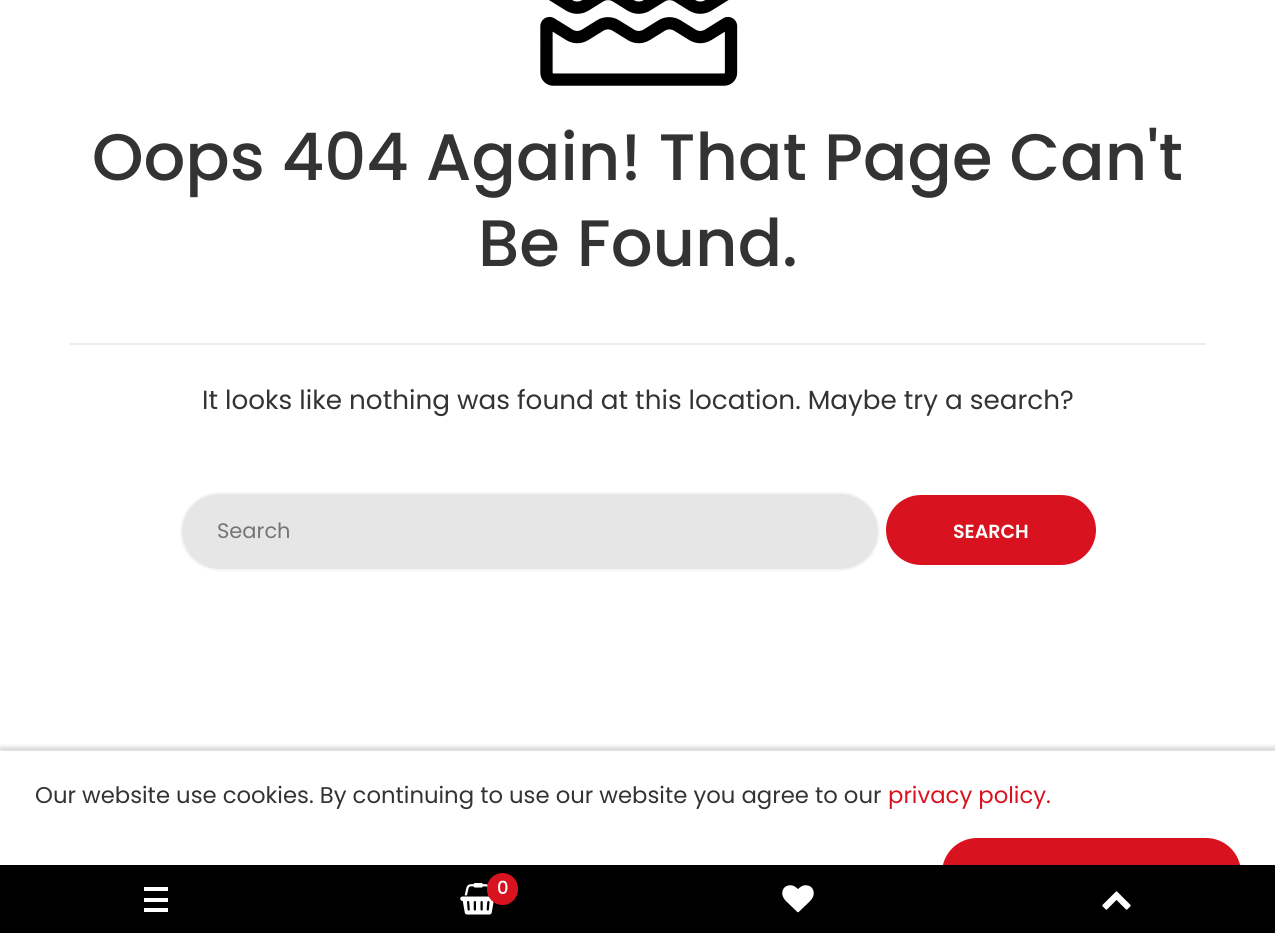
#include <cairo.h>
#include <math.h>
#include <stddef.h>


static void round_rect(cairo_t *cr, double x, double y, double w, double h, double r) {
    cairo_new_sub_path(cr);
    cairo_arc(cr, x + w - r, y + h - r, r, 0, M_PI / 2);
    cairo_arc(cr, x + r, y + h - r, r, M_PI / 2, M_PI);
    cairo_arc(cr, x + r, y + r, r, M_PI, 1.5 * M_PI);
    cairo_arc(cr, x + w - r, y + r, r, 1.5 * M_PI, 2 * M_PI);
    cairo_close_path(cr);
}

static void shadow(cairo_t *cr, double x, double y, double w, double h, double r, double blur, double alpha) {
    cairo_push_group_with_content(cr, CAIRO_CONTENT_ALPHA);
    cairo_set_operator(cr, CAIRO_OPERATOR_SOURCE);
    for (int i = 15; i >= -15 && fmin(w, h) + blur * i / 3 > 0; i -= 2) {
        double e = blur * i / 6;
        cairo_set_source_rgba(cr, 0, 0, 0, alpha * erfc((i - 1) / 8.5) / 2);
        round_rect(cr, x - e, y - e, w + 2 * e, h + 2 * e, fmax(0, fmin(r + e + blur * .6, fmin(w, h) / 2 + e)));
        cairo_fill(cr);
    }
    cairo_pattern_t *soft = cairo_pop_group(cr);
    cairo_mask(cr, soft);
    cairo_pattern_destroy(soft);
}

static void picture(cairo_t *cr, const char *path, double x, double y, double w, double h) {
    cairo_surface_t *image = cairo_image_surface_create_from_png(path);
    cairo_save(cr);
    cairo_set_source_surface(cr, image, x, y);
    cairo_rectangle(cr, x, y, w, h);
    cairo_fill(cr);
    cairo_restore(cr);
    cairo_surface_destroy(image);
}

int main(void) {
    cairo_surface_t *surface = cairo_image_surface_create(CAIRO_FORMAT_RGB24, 1275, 933);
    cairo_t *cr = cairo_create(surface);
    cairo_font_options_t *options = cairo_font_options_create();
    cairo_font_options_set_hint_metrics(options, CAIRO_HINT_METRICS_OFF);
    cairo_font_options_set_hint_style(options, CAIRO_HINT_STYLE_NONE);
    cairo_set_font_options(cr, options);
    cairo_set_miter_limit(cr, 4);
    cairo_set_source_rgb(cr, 1, 1, 1);
    cairo_paint(cr);
    cairo_set_source_rgb(cr, 0.933, 0.933, 0.933);
    cairo_rectangle(cr, 70, 343, 1136, 2);
    cairo_fill(cr);
    picture(cr, "img1.png", 540, 0, 198, 86);
    cairo_select_font_face(cr, "Poppins Medium", CAIRO_FONT_SLANT_NORMAL, CAIRO_FONT_WEIGHT_NORMAL);
    cairo_set_font_size(cr, 65.6);
    cairo_set_source_rgb(cr, 0.2, 0.2, 0.2);
    cairo_move_to(cr, 92, 180);
    cairo_show_text(cr, "Oops 404 Again! That Page Can't");
    cairo_move_to(cr, 478, 266);
    cairo_show_text(cr, "Be Found.");
    cairo_select_font_face(cr, "Poppins", CAIRO_FONT_SLANT_NORMAL, CAIRO_FONT_WEIGHT_NORMAL);
    cairo_set_font_size(cr, 26.25);
    cairo_move_to(cr, 202, 409);
    cairo_show_text(cr, "It looks like nothing was found at this location. Maybe try a search?");
    cairo_set_source_rgb(cr, 0.902, 0.902, 0.902);
    round_rect(cr, 181, 493, 698, 77, 38.5);
    cairo_fill_preserve(cr);
    cairo_set_source_rgb(cr, 0.961, 0.961, 0.961);
    cairo_stroke(cr);
    cairo_set_font_size(cr, 21);
    cairo_set_source_rgb(cr, 0.459, 0.459, 0.459);
    cairo_move_to(cr, 217, 538);
    cairo_show_text(cr, "Search");
    cairo_set_source_rgb(cr, 0.851, 0.071, 0.122);
    round_rect(cr, 886, 495, 210, 70, 35);
    cairo_fill(cr);
    cairo_select_font_face(cr, "Poppins SemiBold", CAIRO_FONT_SLANT_NORMAL, CAIRO_FONT_WEIGHT_NORMAL);
    cairo_set_font_size(cr, 19);
    cairo_set_source_rgb(cr, 1, 1, 1);
    cairo_move_to(cr, 953, 538);
    cairo_show_text(cr, "SEARCH");
    cairo_set_source_rgb(cr, 0.196, 0.196, 0.196);
    shadow(cr, 0, 747, 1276, 184, 0, 2, 0.2);
    cairo_set_source_rgb(cr, 1, 1, 1);
    cairo_rectangle(cr, 0, 751, 1275, 114);
    cairo_fill(cr);
    cairo_set_source_rgb(cr, 0.851, 0.071, 0.122);
    round_rect(cr, 942, 838, 299, 72, 35);
    cairo_fill(cr);
    cairo_set_source_rgb(cr, 0, 0, 0);
    cairo_rectangle(cr, 0, 865, 957, 68);
    cairo_fill(cr);
    cairo_set_source_rgb(cr, 1, 1, 1);
    cairo_rectangle(cr, 144, 898, 24, 4);
    cairo_fill(cr);
    cairo_rectangle(cr, 144, 887, 24, 4);
    cairo_fill(cr);
    cairo_rectangle(cr, 144, 908, 24, 4);
    cairo_fill(cr);
    cairo_set_source_rgb(cr, 0, 0, 0);
    cairo_rectangle(cr, 957, 865, 318, 68);
    cairo_fill(cr);
    picture(cr, "img2.png", 1102, 891, 29, 19);
    picture(cr, "img3.png", 460, 883, 34, 32);
    cairo_set_source_rgb(cr, 0.851, 0.071, 0.122);
    round_rect(cr, 487, 873, 31, 32, 15.5);
    cairo_fill(cr);
    cairo_select_font_face(cr, "Poppins Medium", CAIRO_FONT_SLANT_NORMAL, CAIRO_FONT_WEIGHT_NORMAL);
    cairo_set_font_size(cr, 18);
    cairo_set_source_rgb(cr, 1, 1, 1);
    cairo_move_to(cr, 497, 894);
    cairo_show_text(cr, "0");
    picture(cr, "img4.png", 782, 885, 32, 28);
    picture(cr, "img5.png", 0, 750, 1275, 1);
    cairo_select_font_face(cr, "Poppins", CAIRO_FONT_SLANT_NORMAL, CAIRO_FONT_WEIGHT_NORMAL);
    cairo_set_font_size(cr, 22.75);
    cairo_set_source_rgb(cr, 0.2, 0.2, 0.2);
    cairo_move_to(cr, 35, 803);
    cairo_show_text(cr, "Our website use cookies. By continuing to use our website you agree to our");
    cairo_set_source_rgb(cr, 0.851, 0.071, 0.122);
    cairo_move_to(cr, 888, 803);
    cairo_show_text(cr, "privacy policy.");
    cairo_surface_write_to_png(surface, "page.png");
    cairo_font_options_destroy(options);
    cairo_destroy(cr);
    cairo_surface_destroy(surface);
    return 0;
}
